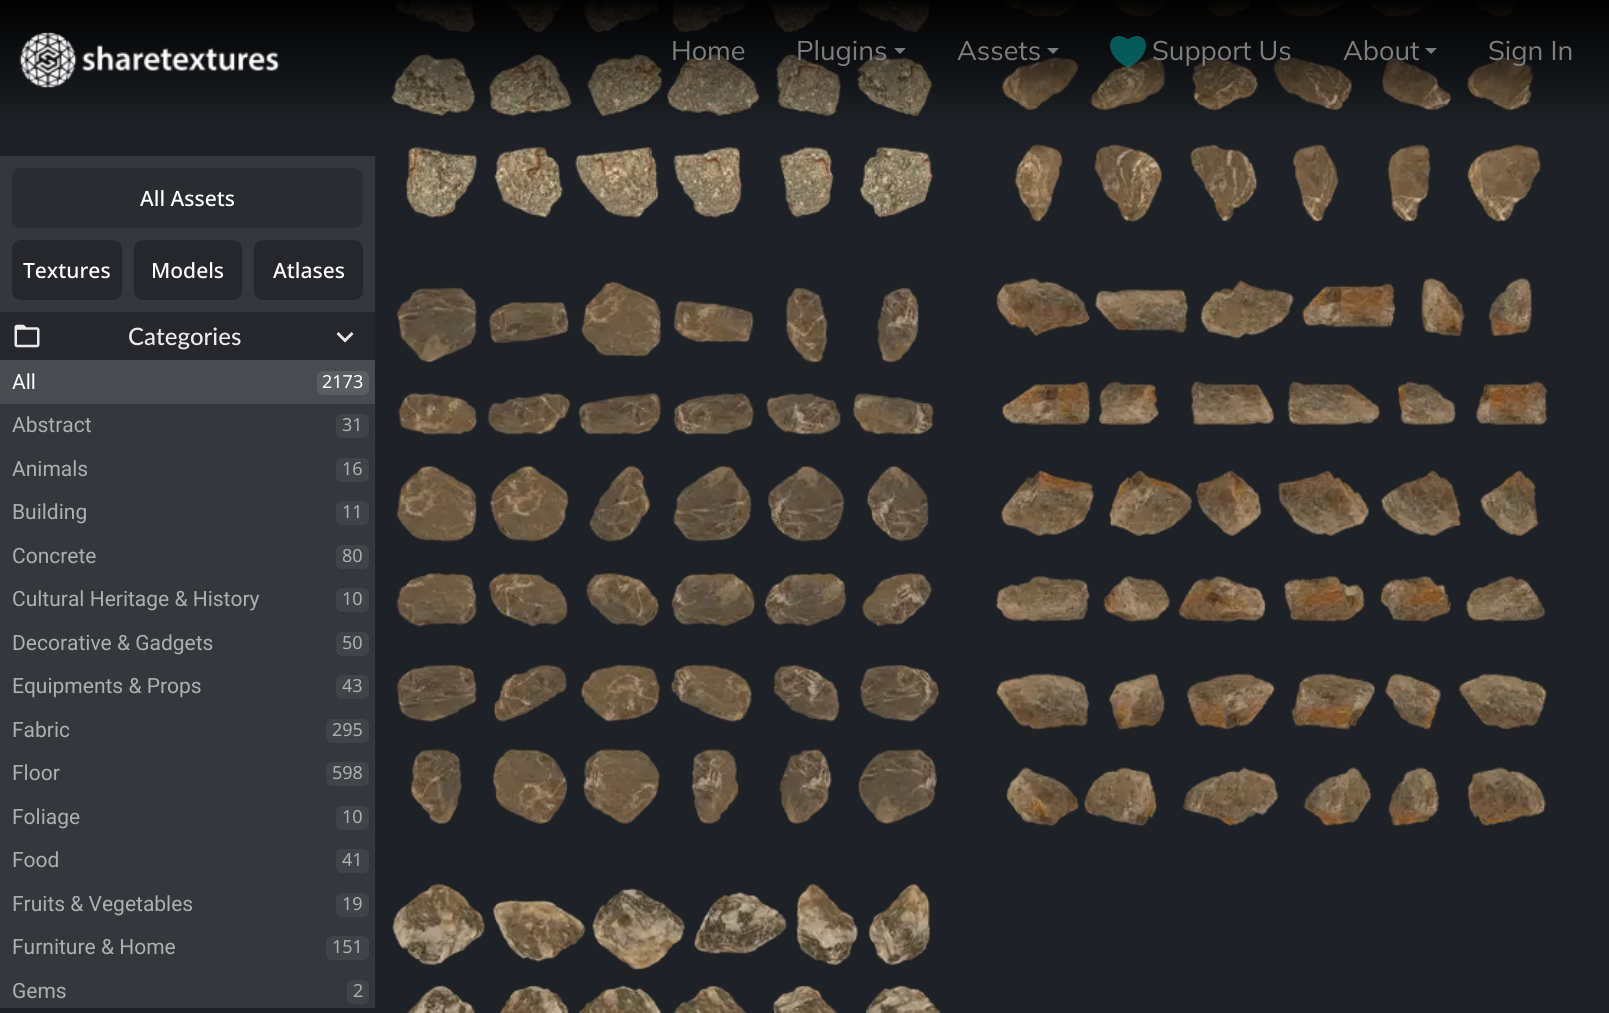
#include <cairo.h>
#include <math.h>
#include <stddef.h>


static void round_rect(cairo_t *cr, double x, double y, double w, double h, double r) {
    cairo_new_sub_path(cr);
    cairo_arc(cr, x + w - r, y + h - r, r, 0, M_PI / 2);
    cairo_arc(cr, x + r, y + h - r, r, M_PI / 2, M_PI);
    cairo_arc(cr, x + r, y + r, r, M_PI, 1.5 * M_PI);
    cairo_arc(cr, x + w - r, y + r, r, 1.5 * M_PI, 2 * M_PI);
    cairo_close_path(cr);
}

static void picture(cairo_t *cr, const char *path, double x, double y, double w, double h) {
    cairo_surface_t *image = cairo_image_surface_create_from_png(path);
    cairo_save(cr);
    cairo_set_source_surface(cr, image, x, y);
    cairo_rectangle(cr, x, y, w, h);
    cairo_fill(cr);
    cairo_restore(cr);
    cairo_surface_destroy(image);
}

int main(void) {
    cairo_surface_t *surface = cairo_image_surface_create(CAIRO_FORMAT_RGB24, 1609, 1013);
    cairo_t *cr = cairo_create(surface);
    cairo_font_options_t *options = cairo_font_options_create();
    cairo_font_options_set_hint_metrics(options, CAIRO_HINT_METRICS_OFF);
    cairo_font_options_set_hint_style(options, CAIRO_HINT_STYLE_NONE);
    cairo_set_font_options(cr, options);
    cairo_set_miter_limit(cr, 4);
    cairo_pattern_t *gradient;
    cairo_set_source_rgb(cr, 0.118, 0.129, 0.149);
    cairo_paint(cr);
    picture(cr, "img3.png", 390, 0, 543, 218);
    picture(cr, "img4.png", 1001, 0, 540, 223);
    gradient = cairo_pattern_create_linear(805, 0, 805, 129);
    cairo_pattern_add_color_stop_rgba(gradient, 0, 0, 0, 0, 0.98);
    cairo_pattern_add_color_stop_rgba(gradient, 1, 0, 0, 0, 0);
    cairo_set_source(cr, gradient);
    cairo_pattern_destroy(gradient);
    cairo_rectangle(cr, 0, 0, 1609, 120);
    cairo_fill(cr);
    picture(cr, "img1.png", 19, 32, 261, 56);
    cairo_select_font_face(cr, "Mulish", CAIRO_FONT_SLANT_NORMAL, CAIRO_FONT_WEIGHT_NORMAL);
    cairo_set_font_size(cr, 27);
    cairo_set_source_rgb(cr, 0.49, 0.494, 0.494);
    cairo_move_to(cr, 671, 60);
    cairo_show_text(cr, "Home");
    cairo_move_to(cr, 796, 60);
    cairo_show_text(cr, "Plugins");
    cairo_set_source_rgb(cr, 0.482, 0.486, 0.49);
    cairo_new_path(cr);
    cairo_move_to(cr, 894, 48);
    cairo_line_to(cr, 906, 48);
    cairo_line_to(cr, 900, 54);
    cairo_close_path(cr);
    cairo_fill(cr);
    cairo_set_source_rgb(cr, 0.49, 0.494, 0.494);
    cairo_move_to(cr, 957, 60);
    cairo_show_text(cr, "Assets");
    cairo_set_source_rgb(cr, 0.482, 0.486, 0.49);
    cairo_new_path(cr);
    cairo_move_to(cr, 1047, 48);
    cairo_line_to(cr, 1059, 48);
    cairo_line_to(cr, 1053, 54);
    cairo_close_path(cr);
    cairo_fill(cr);
    cairo_set_source_rgba(cr, 0, 0.659, 0.647, 0.5);
    cairo_new_path(cr);
    cairo_move_to(cr, 1128, 67.5);
    cairo_curve_to(cr, 1136.5, 64, 1148.5, 53, 1145.5, 42.5);
    cairo_curve_to(cr, 1143.5, 34.5, 1133, 34.5, 1128, 39.5);
    cairo_curve_to(cr, 1123, 34.5, 1112.5, 34.5, 1110.5, 42.5);
    cairo_curve_to(cr, 1107.5, 53, 1119.5, 64, 1128, 67.5);
    cairo_close_path(cr);
    cairo_fill(cr);
    cairo_set_source_rgb(cr, 0.49, 0.494, 0.494);
    cairo_move_to(cr, 1152, 60);
    cairo_show_text(cr, "Support Us");
    cairo_move_to(cr, 1343, 60);
    cairo_show_text(cr, "About");
    cairo_set_source_rgb(cr, 0.482, 0.486, 0.49);
    cairo_new_path(cr);
    cairo_move_to(cr, 1425, 48);
    cairo_line_to(cr, 1437, 48);
    cairo_line_to(cr, 1431, 54);
    cairo_close_path(cr);
    cairo_fill(cr);
    cairo_set_source_rgb(cr, 0.49, 0.494, 0.494);
    cairo_move_to(cr, 1488, 60);
    cairo_show_text(cr, "Sign In");
    cairo_set_source_rgb(cr, 0.204, 0.216, 0.235);
    cairo_rectangle(cr, 0, 156, 375, 852);
    cairo_fill(cr);
    cairo_set_source_rgb(cr, 0.161, 0.173, 0.192);
    round_rect(cr, 12, 168, 351, 60, 9);
    cairo_fill(cr);
    cairo_select_font_face(cr, "Noto Sans Medium", CAIRO_FONT_SLANT_NORMAL, CAIRO_FONT_WEIGHT_NORMAL);
    cairo_set_font_size(cr, 21);
    cairo_set_source_rgb(cr, 1, 1, 1);
    cairo_move_to(cr, 140, 206);
    cairo_show_text(cr, "All Assets");
    cairo_set_source_rgb(cr, 0.145, 0.153, 0.173);
    round_rect(cr, 12, 240, 110, 60, 9);
    cairo_fill(cr);
    cairo_set_source_rgb(cr, 1, 1, 1);
    cairo_move_to(cr, 23, 278);
    cairo_show_text(cr, "Textures");
    cairo_set_source_rgb(cr, 0.145, 0.153, 0.173);
    round_rect(cr, 134, 240, 108, 60, 9);
    cairo_fill(cr);
    cairo_set_source_rgb(cr, 1, 1, 1);
    cairo_move_to(cr, 151, 278);
    cairo_show_text(cr, "Models");
    cairo_set_source_rgb(cr, 0.145, 0.153, 0.173);
    round_rect(cr, 254, 240, 109, 60, 9);
    cairo_fill(cr);
    cairo_set_source_rgb(cr, 1, 1, 1);
    cairo_move_to(cr, 273, 278);
    cairo_show_text(cr, "Atlases");
    cairo_set_source_rgb(cr, 0.145, 0.153, 0.173);
    cairo_rectangle(cr, 0, 312, 375, 48);
    cairo_fill(cr);
    picture(cr, "img2.png", 14, 324, 26, 24);
    cairo_select_font_face(cr, "Lato Medium", CAIRO_FONT_SLANT_NORMAL, CAIRO_FONT_WEIGHT_NORMAL);
    cairo_set_font_size(cr, 24);
    cairo_set_source_rgb(cr, 0.918, 0.918, 0.918);
    cairo_move_to(cr, 128, 345);
    cairo_show_text(cr, "Categories");
    cairo_new_path(cr);
    cairo_move_to(cr, 351.5, 332);
    cairo_line_to(cr, 345, 338.5);
    cairo_line_to(cr, 338.5, 332);
    cairo_line_to(cr, 336.5, 334);
    cairo_line_to(cr, 345, 342.5);
    cairo_line_to(cr, 353.5, 334);
    cairo_close_path(cr);
    cairo_fill(cr);
    cairo_set_source_rgb(cr, 0.282, 0.294, 0.314);
    cairo_rectangle(cr, 0, 360, 375, 44);
    cairo_fill(cr);
    cairo_select_font_face(cr, "Roboto", CAIRO_FONT_SLANT_NORMAL, CAIRO_FONT_WEIGHT_NORMAL);
    cairo_set_font_size(cr, 21);
    cairo_set_source_rgb(cr, 1, 1, 1);
    cairo_move_to(cr, 12, 389);
    cairo_show_text(cr, "All");
    cairo_set_source_rgb(cr, 0.353, 0.365, 0.384);
    round_rect(cr, 317, 371, 52, 24, 6);
    cairo_fill(cr);
    cairo_select_font_face(cr, "Noto Sans", CAIRO_FONT_SLANT_NORMAL, CAIRO_FONT_WEIGHT_NORMAL);
    cairo_set_font_size(cr, 18);
    cairo_set_source_rgb(cr, 1, 1, 1);
    cairo_move_to(cr, 322, 388);
    cairo_show_text(cr, "2173");
    cairo_select_font_face(cr, "Roboto", CAIRO_FONT_SLANT_NORMAL, CAIRO_FONT_WEIGHT_NORMAL);
    cairo_set_font_size(cr, 21);
    cairo_set_source_rgb(cr, 0.682, 0.686, 0.694);
    cairo_move_to(cr, 12, 432);
    cairo_show_text(cr, "Abstract");
    cairo_set_source_rgb(cr, 0.251, 0.263, 0.282);
    round_rect(cr, 336, 414, 33, 24, 6);
    cairo_fill(cr);
    cairo_select_font_face(cr, "Noto Sans", CAIRO_FONT_SLANT_NORMAL, CAIRO_FONT_WEIGHT_NORMAL);
    cairo_set_font_size(cr, 18);
    cairo_set_source_rgb(cr, 0.682, 0.686, 0.694);
    cairo_move_to(cr, 342, 431);
    cairo_show_text(cr, "31");
    cairo_select_font_face(cr, "Roboto", CAIRO_FONT_SLANT_NORMAL, CAIRO_FONT_WEIGHT_NORMAL);
    cairo_set_font_size(cr, 21);
    cairo_move_to(cr, 12, 476);
    cairo_show_text(cr, "Animals");
    cairo_set_source_rgb(cr, 0.251, 0.263, 0.282);
    round_rect(cr, 336, 458, 33, 24, 6);
    cairo_fill(cr);
    cairo_select_font_face(cr, "Noto Sans", CAIRO_FONT_SLANT_NORMAL, CAIRO_FONT_WEIGHT_NORMAL);
    cairo_set_font_size(cr, 18);
    cairo_set_source_rgb(cr, 0.682, 0.686, 0.694);
    cairo_move_to(cr, 342, 475);
    cairo_show_text(cr, "16");
    cairo_select_font_face(cr, "Roboto", CAIRO_FONT_SLANT_NORMAL, CAIRO_FONT_WEIGHT_NORMAL);
    cairo_set_font_size(cr, 21);
    cairo_move_to(cr, 12, 519);
    cairo_show_text(cr, "Building");
    cairo_set_source_rgb(cr, 0.251, 0.263, 0.282);
    round_rect(cr, 336, 501, 33, 24, 6);
    cairo_fill(cr);
    cairo_select_font_face(cr, "Noto Sans", CAIRO_FONT_SLANT_NORMAL, CAIRO_FONT_WEIGHT_NORMAL);
    cairo_set_font_size(cr, 18);
    cairo_set_source_rgb(cr, 0.682, 0.686, 0.694);
    cairo_move_to(cr, 342, 518);
    cairo_show_text(cr, "11");
    cairo_select_font_face(cr, "Roboto", CAIRO_FONT_SLANT_NORMAL, CAIRO_FONT_WEIGHT_NORMAL);
    cairo_set_font_size(cr, 21);
    cairo_move_to(cr, 12, 563);
    cairo_show_text(cr, "Concrete");
    cairo_set_source_rgb(cr, 0.251, 0.263, 0.282);
    round_rect(cr, 336, 545, 33, 24, 6);
    cairo_fill(cr);
    cairo_select_font_face(cr, "Noto Sans", CAIRO_FONT_SLANT_NORMAL, CAIRO_FONT_WEIGHT_NORMAL);
    cairo_set_font_size(cr, 18);
    cairo_set_source_rgb(cr, 0.682, 0.686, 0.694);
    cairo_move_to(cr, 342, 562);
    cairo_show_text(cr, "80");
    cairo_select_font_face(cr, "Roboto", CAIRO_FONT_SLANT_NORMAL, CAIRO_FONT_WEIGHT_NORMAL);
    cairo_set_font_size(cr, 21);
    cairo_move_to(cr, 12, 606);
    cairo_show_text(cr, "Cultural Heritage & History");
    cairo_set_source_rgb(cr, 0.251, 0.263, 0.282);
    round_rect(cr, 336, 588, 33, 24, 6);
    cairo_fill(cr);
    cairo_select_font_face(cr, "Noto Sans", CAIRO_FONT_SLANT_NORMAL, CAIRO_FONT_WEIGHT_NORMAL);
    cairo_set_font_size(cr, 18);
    cairo_set_source_rgb(cr, 0.682, 0.686, 0.694);
    cairo_move_to(cr, 342, 605);
    cairo_show_text(cr, "10");
    cairo_select_font_face(cr, "Roboto", CAIRO_FONT_SLANT_NORMAL, CAIRO_FONT_WEIGHT_NORMAL);
    cairo_set_font_size(cr, 21);
    cairo_move_to(cr, 12, 650);
    cairo_show_text(cr, "Decorative & Gadgets");
    cairo_set_source_rgb(cr, 0.251, 0.263, 0.282);
    round_rect(cr, 336, 632, 33, 24, 6);
    cairo_fill(cr);
    cairo_select_font_face(cr, "Noto Sans", CAIRO_FONT_SLANT_NORMAL, CAIRO_FONT_WEIGHT_NORMAL);
    cairo_set_font_size(cr, 18);
    cairo_set_source_rgb(cr, 0.682, 0.686, 0.694);
    cairo_move_to(cr, 342, 649);
    cairo_show_text(cr, "50");
    cairo_select_font_face(cr, "Roboto", CAIRO_FONT_SLANT_NORMAL, CAIRO_FONT_WEIGHT_NORMAL);
    cairo_set_font_size(cr, 21);
    cairo_move_to(cr, 12, 693);
    cairo_show_text(cr, "Equipments & Props");
    cairo_set_source_rgb(cr, 0.251, 0.263, 0.282);
    round_rect(cr, 336, 675, 33, 24, 6);
    cairo_fill(cr);
    cairo_select_font_face(cr, "Noto Sans", CAIRO_FONT_SLANT_NORMAL, CAIRO_FONT_WEIGHT_NORMAL);
    cairo_set_font_size(cr, 18);
    cairo_set_source_rgb(cr, 0.682, 0.686, 0.694);
    cairo_move_to(cr, 342, 692);
    cairo_show_text(cr, "43");
    cairo_select_font_face(cr, "Roboto", CAIRO_FONT_SLANT_NORMAL, CAIRO_FONT_WEIGHT_NORMAL);
    cairo_set_font_size(cr, 21);
    cairo_move_to(cr, 12, 737);
    cairo_show_text(cr, "Fabric");
    cairo_set_source_rgb(cr, 0.251, 0.263, 0.282);
    round_rect(cr, 326, 719, 43, 24, 6);
    cairo_fill(cr);
    cairo_select_font_face(cr, "Noto Sans", CAIRO_FONT_SLANT_NORMAL, CAIRO_FONT_WEIGHT_NORMAL);
    cairo_set_font_size(cr, 18);
    cairo_set_source_rgb(cr, 0.682, 0.686, 0.694);
    cairo_move_to(cr, 332, 736);
    cairo_show_text(cr, "295");
    cairo_select_font_face(cr, "Roboto", CAIRO_FONT_SLANT_NORMAL, CAIRO_FONT_WEIGHT_NORMAL);
    cairo_set_font_size(cr, 21);
    cairo_move_to(cr, 12, 780);
    cairo_show_text(cr, "Floor");
    cairo_set_source_rgb(cr, 0.251, 0.263, 0.282);
    round_rect(cr, 326, 762, 43, 24, 6);
    cairo_fill(cr);
    cairo_select_font_face(cr, "Noto Sans", CAIRO_FONT_SLANT_NORMAL, CAIRO_FONT_WEIGHT_NORMAL);
    cairo_set_font_size(cr, 18);
    cairo_set_source_rgb(cr, 0.682, 0.686, 0.694);
    cairo_move_to(cr, 332, 779);
    cairo_show_text(cr, "598");
    cairo_select_font_face(cr, "Roboto", CAIRO_FONT_SLANT_NORMAL, CAIRO_FONT_WEIGHT_NORMAL);
    cairo_set_font_size(cr, 21);
    cairo_move_to(cr, 12, 824);
    cairo_show_text(cr, "Foliage");
    cairo_set_source_rgb(cr, 0.251, 0.263, 0.282);
    round_rect(cr, 336, 806, 33, 24, 6);
    cairo_fill(cr);
    cairo_select_font_face(cr, "Noto Sans", CAIRO_FONT_SLANT_NORMAL, CAIRO_FONT_WEIGHT_NORMAL);
    cairo_set_font_size(cr, 18);
    cairo_set_source_rgb(cr, 0.682, 0.686, 0.694);
    cairo_move_to(cr, 342, 823);
    cairo_show_text(cr, "10");
    cairo_select_font_face(cr, "Roboto", CAIRO_FONT_SLANT_NORMAL, CAIRO_FONT_WEIGHT_NORMAL);
    cairo_set_font_size(cr, 21);
    cairo_move_to(cr, 12, 867);
    cairo_show_text(cr, "Food");
    cairo_set_source_rgb(cr, 0.251, 0.263, 0.282);
    round_rect(cr, 336, 849, 33, 24, 6);
    cairo_fill(cr);
    cairo_select_font_face(cr, "Noto Sans", CAIRO_FONT_SLANT_NORMAL, CAIRO_FONT_WEIGHT_NORMAL);
    cairo_set_font_size(cr, 18);
    cairo_set_source_rgb(cr, 0.682, 0.686, 0.694);
    cairo_move_to(cr, 342, 866);
    cairo_show_text(cr, "41");
    cairo_select_font_face(cr, "Roboto", CAIRO_FONT_SLANT_NORMAL, CAIRO_FONT_WEIGHT_NORMAL);
    cairo_set_font_size(cr, 21);
    cairo_move_to(cr, 12, 911);
    cairo_show_text(cr, "Fruits & Vegetables");
    cairo_set_source_rgb(cr, 0.251, 0.263, 0.282);
    round_rect(cr, 336, 893, 33, 24, 6);
    cairo_fill(cr);
    cairo_select_font_face(cr, "Noto Sans", CAIRO_FONT_SLANT_NORMAL, CAIRO_FONT_WEIGHT_NORMAL);
    cairo_set_font_size(cr, 18);
    cairo_set_source_rgb(cr, 0.682, 0.686, 0.694);
    cairo_move_to(cr, 342, 910);
    cairo_show_text(cr, "19");
    cairo_select_font_face(cr, "Roboto", CAIRO_FONT_SLANT_NORMAL, CAIRO_FONT_WEIGHT_NORMAL);
    cairo_set_font_size(cr, 21);
    cairo_move_to(cr, 12, 954);
    cairo_show_text(cr, "Furniture & Home");
    cairo_set_source_rgb(cr, 0.251, 0.263, 0.282);
    round_rect(cr, 326, 936, 43, 24, 6);
    cairo_fill(cr);
    cairo_select_font_face(cr, "Noto Sans", CAIRO_FONT_SLANT_NORMAL, CAIRO_FONT_WEIGHT_NORMAL);
    cairo_set_font_size(cr, 18);
    cairo_set_source_rgb(cr, 0.682, 0.686, 0.694);
    cairo_move_to(cr, 332, 953);
    cairo_show_text(cr, "151");
    cairo_select_font_face(cr, "Roboto", CAIRO_FONT_SLANT_NORMAL, CAIRO_FONT_WEIGHT_NORMAL);
    cairo_set_font_size(cr, 21);
    cairo_move_to(cr, 12, 998);
    cairo_show_text(cr, "Gems");
    cairo_set_source_rgb(cr, 0.251, 0.263, 0.282);
    round_rect(cr, 347, 980, 22, 24, 6);
    cairo_fill(cr);
    cairo_select_font_face(cr, "Noto Sans", CAIRO_FONT_SLANT_NORMAL, CAIRO_FONT_WEIGHT_NORMAL);
    cairo_set_font_size(cr, 18);
    cairo_set_source_rgb(cr, 0.682, 0.686, 0.694);
    cairo_move_to(cr, 353, 997);
    cairo_show_text(cr, "2");
    picture(cr, "img5.png", 396, 282, 544, 542);
    picture(cr, "img6.png", 995, 277, 553, 550);
    picture(cr, "img7.png", 392, 883, 550, 130);
    cairo_surface_write_to_png(surface, "page.png");
    cairo_font_options_destroy(options);
    cairo_destroy(cr);
    cairo_surface_destroy(surface);
    return 0;
}
